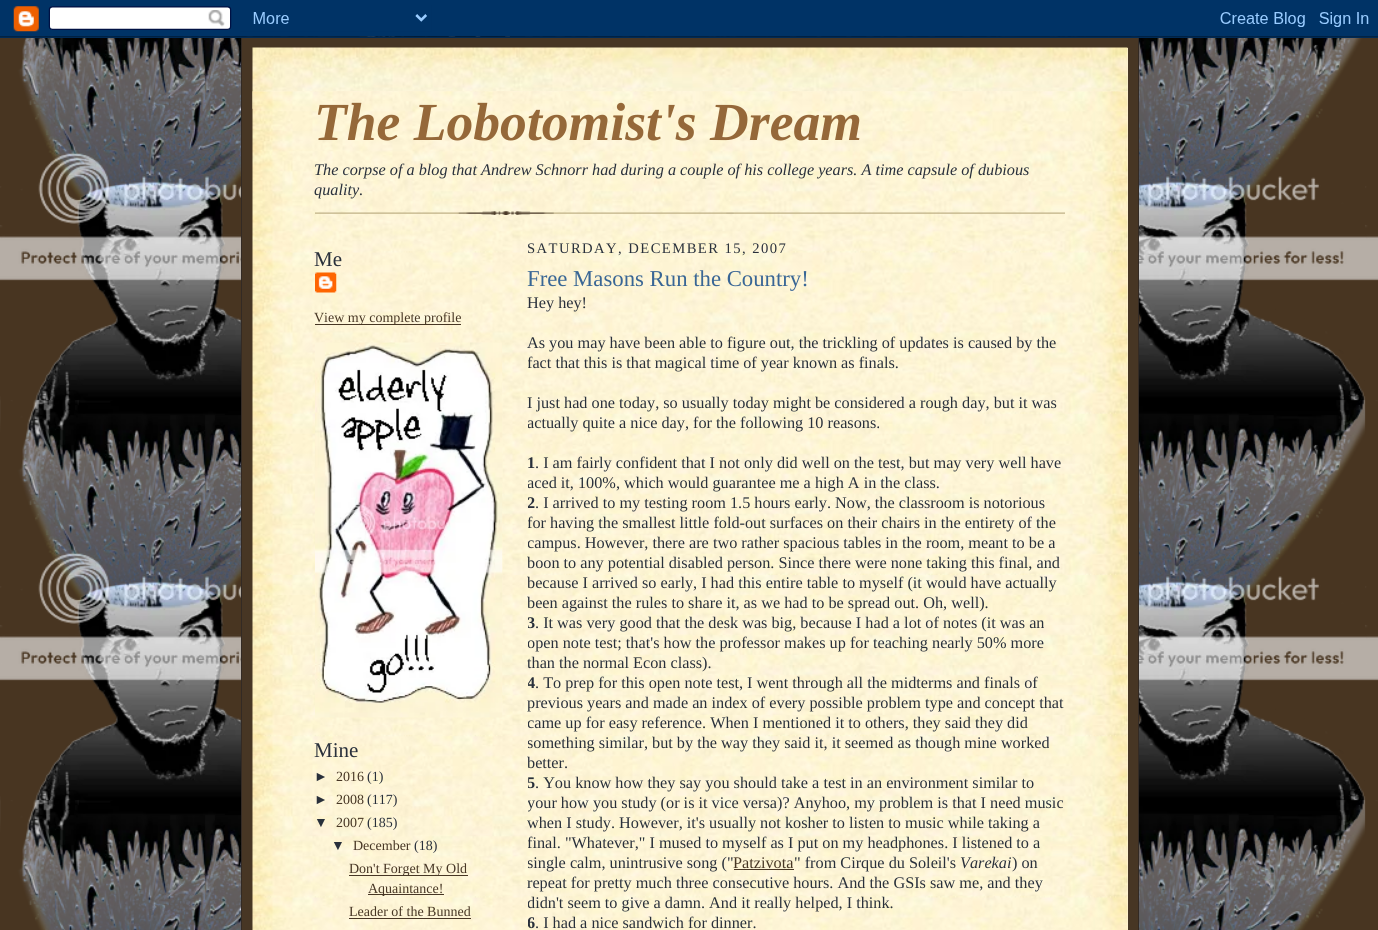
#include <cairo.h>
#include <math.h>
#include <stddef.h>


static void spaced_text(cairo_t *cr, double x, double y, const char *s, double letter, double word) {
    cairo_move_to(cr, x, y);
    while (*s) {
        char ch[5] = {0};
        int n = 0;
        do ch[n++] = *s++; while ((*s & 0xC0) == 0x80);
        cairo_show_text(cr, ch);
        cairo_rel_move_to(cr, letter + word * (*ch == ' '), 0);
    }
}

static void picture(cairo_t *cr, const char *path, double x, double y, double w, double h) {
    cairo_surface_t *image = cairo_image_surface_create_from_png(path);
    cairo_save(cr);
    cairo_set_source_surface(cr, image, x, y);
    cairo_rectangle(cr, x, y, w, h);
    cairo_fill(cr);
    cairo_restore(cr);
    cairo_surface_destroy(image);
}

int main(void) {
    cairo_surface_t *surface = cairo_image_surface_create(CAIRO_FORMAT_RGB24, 1378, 930);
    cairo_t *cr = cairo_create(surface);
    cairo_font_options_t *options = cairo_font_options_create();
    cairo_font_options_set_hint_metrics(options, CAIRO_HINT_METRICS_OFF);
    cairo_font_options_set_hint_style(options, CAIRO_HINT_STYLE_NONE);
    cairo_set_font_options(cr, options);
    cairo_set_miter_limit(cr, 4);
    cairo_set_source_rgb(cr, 0.282, 0.208, 0.129);
    cairo_paint(cr);
    picture(cr, "img1.png", 0, 36, 1378, 894);
    picture(cr, "img2.png", 0, 0, 1378, 38);
    cairo_set_source_rgb(cr, 0.278, 0.212, 0.141);
    cairo_rectangle(cr, 242, 38, 896, 892);
    cairo_fill(cr);
    cairo_set_source_rgb(cr, 0.2, 0.165, 0.141);
    cairo_rectangle(cr, 1138, 38, 1, 892);
    cairo_fill(cr);
    cairo_rectangle(cr, 241, 38, 1, 892);
    cairo_fill(cr);
    cairo_set_source_rgb(cr, 1, 0.953, 0.859);
    cairo_rectangle(cr, 1127, 48, 1, 43);
    cairo_fill(cr);
    picture(cr, "img3.png", 252, 47, 876, 62);
    cairo_rectangle(cr, 253, 91, 875, 839);
    cairo_fill(cr);
    picture(cr, "img4.png", 252, 91, 876, 839);
    picture(cr, "img5.png", 315, 211, 750, 4);
    cairo_select_font_face(cr, "Liberation Serif", CAIRO_FONT_SLANT_ITALIC, CAIRO_FONT_WEIGHT_BOLD);
    cairo_set_font_size(cr, 53.6);
    cairo_set_source_rgb(cr, 0.584, 0.408, 0.224);
    cairo_move_to(cr, 314, 140);
    cairo_show_text(cr, "The Lobotomist's Dream");
    cairo_select_font_face(cr, "Liberation Serif", CAIRO_FONT_SLANT_ITALIC, CAIRO_FONT_WEIGHT_NORMAL);
    cairo_set_font_size(cr, 16.25);
    cairo_set_source_rgb(cr, 0.161, 0.188, 0.231);
    cairo_move_to(cr, 314, 175);
    cairo_show_text(cr, "The corpse of a blog that Andrew Schnorr had during a couple of his college years. A time capsule of dubious");
    cairo_move_to(cr, 314, 195);
    cairo_show_text(cr, "quality.");
    cairo_select_font_face(cr, "Liberation Serif", CAIRO_FONT_SLANT_NORMAL, CAIRO_FONT_WEIGHT_NORMAL);
    cairo_set_font_size(cr, 21);
    cairo_move_to(cr, 314, 266);
    cairo_show_text(cr, "Me");
    picture(cr, "img6.png", 315, 272, 22, 21);
    cairo_set_source_rgb(cr, 0.278, 0.212, 0.141);
    cairo_rectangle(cr, 315, 324, 146, 1);
    cairo_fill(cr);
    cairo_set_font_size(cr, 14);
    cairo_move_to(cr, 314, 322);
    cairo_show_text(cr, "View my complete profile");
    picture(cr, "img7.png", 315, 342, 188, 376);
    cairo_set_font_size(cr, 21);
    cairo_set_source_rgb(cr, 0.161, 0.188, 0.231);
    cairo_move_to(cr, 314, 757);
    cairo_show_text(cr, "Mine");
    cairo_select_font_face(cr, "Liberation Sans", CAIRO_FONT_SLANT_NORMAL, CAIRO_FONT_WEIGHT_NORMAL);
    cairo_set_font_size(cr, 14);
    cairo_move_to(cr, 314, 781);
    cairo_show_text(cr, "►");
    cairo_select_font_face(cr, "Liberation Serif", CAIRO_FONT_SLANT_NORMAL, CAIRO_FONT_WEIGHT_NORMAL);
    cairo_set_source_rgb(cr, 0.278, 0.212, 0.141);
    cairo_move_to(cr, 336, 781);
    cairo_show_text(cr, "2016");
    cairo_set_source_rgb(cr, 0.161, 0.188, 0.231);
    cairo_move_to(cr, 367, 781);
    cairo_show_text(cr, "(1)");
    cairo_select_font_face(cr, "Liberation Sans", CAIRO_FONT_SLANT_NORMAL, CAIRO_FONT_WEIGHT_NORMAL);
    cairo_move_to(cr, 314, 804);
    cairo_show_text(cr, "►");
    cairo_select_font_face(cr, "Liberation Serif", CAIRO_FONT_SLANT_NORMAL, CAIRO_FONT_WEIGHT_NORMAL);
    cairo_set_source_rgb(cr, 0.278, 0.212, 0.141);
    cairo_move_to(cr, 336, 804);
    cairo_show_text(cr, "2008");
    cairo_set_source_rgb(cr, 0.161, 0.188, 0.231);
    cairo_move_to(cr, 367, 804);
    cairo_show_text(cr, "(117)");
    cairo_select_font_face(cr, "Liberation Sans", CAIRO_FONT_SLANT_NORMAL, CAIRO_FONT_WEIGHT_NORMAL);
    cairo_move_to(cr, 314, 827);
    cairo_show_text(cr, "▼");
    cairo_select_font_face(cr, "Liberation Serif", CAIRO_FONT_SLANT_NORMAL, CAIRO_FONT_WEIGHT_NORMAL);
    cairo_set_source_rgb(cr, 0.278, 0.212, 0.141);
    cairo_move_to(cr, 336, 827);
    cairo_show_text(cr, "2007");
    cairo_set_source_rgb(cr, 0.161, 0.188, 0.231);
    cairo_move_to(cr, 367, 827);
    cairo_show_text(cr, "(185)");
    cairo_select_font_face(cr, "Liberation Sans", CAIRO_FONT_SLANT_NORMAL, CAIRO_FONT_WEIGHT_NORMAL);
    cairo_move_to(cr, 331, 850);
    cairo_show_text(cr, "▼");
    cairo_select_font_face(cr, "Liberation Serif", CAIRO_FONT_SLANT_NORMAL, CAIRO_FONT_WEIGHT_NORMAL);
    cairo_set_source_rgb(cr, 0.278, 0.212, 0.141);
    cairo_move_to(cr, 353, 850);
    cairo_show_text(cr, "December");
    cairo_set_source_rgb(cr, 0.161, 0.188, 0.231);
    cairo_move_to(cr, 414, 850);
    cairo_show_text(cr, "(18)");
    cairo_set_source_rgb(cr, 0.278, 0.212, 0.141);
    cairo_rectangle(cr, 349, 875, 119, 1);
    cairo_fill(cr);
    cairo_move_to(cr, 349, 873);
    cairo_show_text(cr, "Don't Forget My Old");
    cairo_rectangle(cr, 368, 894, 76, 1);
    cairo_fill(cr);
    cairo_move_to(cr, 368, 893);
    cairo_show_text(cr, "Aquaintance!");
    cairo_move_to(cr, 349, 916);
    cairo_show_text(cr, "Leader of the Bunned");
    cairo_rectangle(cr, 349, 918, 122, 1);
    cairo_fill(cr);
    cairo_save(cr);
    cairo_rectangle(cr, 528, 230, 537, 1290);
    cairo_clip(cr);
    cairo_set_font_size(cr, 14.6);
    cairo_set_source_rgb(cr, 0.161, 0.188, 0.231);
    spaced_text(cr, 527, 253, "SATURDAY, DECEMBER 15, 2007", 1.45, 0);
    cairo_restore(cr);
    cairo_set_font_size(cr, 22.75);
    cairo_set_source_rgb(cr, 0.224, 0.4, 0.584);
    cairo_move_to(cr, 527, 286);
    cairo_show_text(cr, "Free Masons Run the Country!");
    cairo_set_font_size(cr, 16.25);
    cairo_set_source_rgb(cr, 0.161, 0.188, 0.231);
    cairo_move_to(cr, 527, 308);
    cairo_show_text(cr, "Hey hey!");
    cairo_move_to(cr, 527, 348);
    cairo_show_text(cr, "As you may have been able to figure out, the trickling of updates is caused by the");
    cairo_save(cr);
    cairo_rectangle(cr, 528, 230, 537, 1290);
    cairo_clip(cr);
    cairo_move_to(cr, 527, 368);
    cairo_show_text(cr, "fact that this is that magical time of year known as finals.");
    cairo_restore(cr);
    cairo_move_to(cr, 527, 408);
    cairo_show_text(cr, "I just had one today, so usually today might be considered a rough day, but it was");
    cairo_save(cr);
    cairo_rectangle(cr, 528, 230, 537, 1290);
    cairo_clip(cr);
    cairo_move_to(cr, 527, 428);
    cairo_show_text(cr, "actually quite a nice day, for the following 10 reasons.");
    cairo_restore(cr);
    cairo_select_font_face(cr, "Liberation Serif", CAIRO_FONT_SLANT_NORMAL, CAIRO_FONT_WEIGHT_BOLD);
    cairo_move_to(cr, 527, 468);
    cairo_show_text(cr, "1");
    cairo_select_font_face(cr, "Liberation Serif", CAIRO_FONT_SLANT_NORMAL, CAIRO_FONT_WEIGHT_NORMAL);
    cairo_move_to(cr, 535, 468);
    cairo_show_text(cr, ". I am fairly confident that I not only did well on the test, but may very well have");
    cairo_save(cr);
    cairo_rectangle(cr, 528, 230, 537, 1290);
    cairo_clip(cr);
    cairo_move_to(cr, 527, 488);
    cairo_show_text(cr, "aced it, 100%, which would guarantee me a high A in the class.");
    cairo_select_font_face(cr, "Liberation Serif", CAIRO_FONT_SLANT_NORMAL, CAIRO_FONT_WEIGHT_BOLD);
    cairo_move_to(cr, 527, 508);
    cairo_show_text(cr, "2");
    cairo_restore(cr);
    cairo_move_to(cr, 535, 508);
    cairo_show_text(cr, ". I arrived to my testing room 1.5 hours early. Now, the classroom is notorious");
    cairo_save(cr);
    cairo_rectangle(cr, 528, 230, 537, 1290);
    cairo_clip(cr);
    cairo_move_to(cr, 527, 528);
    cairo_show_text(cr, "for having the smallest little fold-out surfaces on their chairs in the entirety of the");
    cairo_move_to(cr, 527, 548);
    cairo_show_text(cr, "campus. However, there are two rather spacious tables in the room, meant to be a");
    cairo_restore(cr);
    cairo_move_to(cr, 527, 568);
    cairo_show_text(cr, "boon to any potential disabled person. Since there were none taking this final, and");
    cairo_move_to(cr, 527, 588);
    cairo_show_text(cr, "because I arrived so early, I had this entire table to myself (it would have actually");
    cairo_move_to(cr, 527, 608);
    cairo_show_text(cr, "been against the rules to share it, as we had to be spread out. Oh, well).");
    cairo_save(cr);
    cairo_rectangle(cr, 528, 230, 537, 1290);
    cairo_clip(cr);
    cairo_select_font_face(cr, "Liberation Serif", CAIRO_FONT_SLANT_NORMAL, CAIRO_FONT_WEIGHT_BOLD);
    cairo_move_to(cr, 527, 628);
    cairo_show_text(cr, "3");
    cairo_restore(cr);
    cairo_move_to(cr, 535, 628);
    cairo_show_text(cr, ". It was very good that the desk was big, because I had a lot of notes (it was an");
    cairo_save(cr);
    cairo_rectangle(cr, 528, 230, 537, 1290);
    cairo_clip(cr);
    cairo_move_to(cr, 527, 648);
    cairo_show_text(cr, "open note test; that's how the professor makes up for teaching nearly 50% more");
    cairo_restore(cr);
    cairo_move_to(cr, 527, 668);
    cairo_show_text(cr, "than the normal Econ class).");
    cairo_save(cr);
    cairo_rectangle(cr, 528, 230, 537, 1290);
    cairo_clip(cr);
    cairo_select_font_face(cr, "Liberation Serif", CAIRO_FONT_SLANT_NORMAL, CAIRO_FONT_WEIGHT_BOLD);
    cairo_move_to(cr, 527, 688);
    cairo_show_text(cr, "4");
    cairo_restore(cr);
    cairo_move_to(cr, 535, 688);
    cairo_show_text(cr, ". To prep for this open note test, I went through all the midterms and finals of");
    cairo_move_to(cr, 527, 708);
    cairo_show_text(cr, "previous years and made an index of every possible problem type and concept that");
    cairo_save(cr);
    cairo_rectangle(cr, 528, 230, 537, 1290);
    cairo_clip(cr);
    cairo_move_to(cr, 527, 728);
    cairo_show_text(cr, "came up for easy reference. When I mentioned it to others, they said they did");
    cairo_move_to(cr, 527, 748);
    cairo_show_text(cr, "something similar, but by the way they said it, it seemed as though mine worked");
    cairo_restore(cr);
    cairo_move_to(cr, 527, 768);
    cairo_show_text(cr, "better.");
    cairo_save(cr);
    cairo_rectangle(cr, 528, 230, 537, 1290);
    cairo_clip(cr);
    cairo_select_font_face(cr, "Liberation Serif", CAIRO_FONT_SLANT_NORMAL, CAIRO_FONT_WEIGHT_BOLD);
    cairo_move_to(cr, 527, 788);
    cairo_show_text(cr, "5");
    cairo_restore(cr);
    cairo_move_to(cr, 535, 788);
    cairo_show_text(cr, ". You know how they say you should take a test in an environment similar to");
    cairo_save(cr);
    cairo_rectangle(cr, 528, 230, 537, 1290);
    cairo_clip(cr);
    cairo_move_to(cr, 527, 808);
    cairo_show_text(cr, "your how you study (or is it vice versa)? Anyhoo, my problem is that I need music");
    cairo_restore(cr);
    cairo_move_to(cr, 527, 828);
    cairo_show_text(cr, "when I study. However, it's usually not kosher to listen to music while taking a");
    cairo_save(cr);
    cairo_rectangle(cr, 528, 230, 537, 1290);
    cairo_clip(cr);
    cairo_move_to(cr, 527, 848);
    cairo_show_text(cr, "final. \"Whatever,\" I mused to myself as I put on my headphones. I listened to a");
    cairo_move_to(cr, 527, 868);
    cairo_show_text(cr, "single calm, unintrusive song (\"");
    cairo_restore(cr);
    cairo_set_source_rgb(cr, 0.278, 0.212, 0.141);
    cairo_move_to(cr, 733, 868);
    cairo_show_text(cr, "Patzivota");
    cairo_rectangle(cr, 734, 869, 60, 1);
    cairo_fill(cr);
    cairo_set_source_rgb(cr, 0.161, 0.188, 0.231);
    cairo_move_to(cr, 794, 868);
    cairo_show_text(cr, "\" from Cirque du Soleil's");
    cairo_select_font_face(cr, "Liberation Serif", CAIRO_FONT_SLANT_ITALIC, CAIRO_FONT_WEIGHT_NORMAL);
    cairo_move_to(cr, 960, 868);
    cairo_show_text(cr, "Varekai");
    cairo_select_font_face(cr, "Liberation Serif", CAIRO_FONT_SLANT_NORMAL, CAIRO_FONT_WEIGHT_NORMAL);
    cairo_move_to(cr, 1012, 868);
    cairo_show_text(cr, ") on");
    cairo_move_to(cr, 527, 888);
    cairo_show_text(cr, "repeat for pretty much three consecutive hours. And the GSIs saw me, and they");
    cairo_save(cr);
    cairo_rectangle(cr, 528, 230, 537, 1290);
    cairo_clip(cr);
    cairo_move_to(cr, 527, 908);
    cairo_show_text(cr, "didn't seem to give a damn. And it really helped, I think.");
    cairo_select_font_face(cr, "Liberation Serif", CAIRO_FONT_SLANT_NORMAL, CAIRO_FONT_WEIGHT_BOLD);
    cairo_move_to(cr, 527, 928);
    cairo_show_text(cr, "6");
    cairo_restore(cr);
    cairo_move_to(cr, 535, 928);
    cairo_show_text(cr, ". I had a nice sandwich for dinner.");
    cairo_surface_write_to_png(surface, "page.png");
    cairo_font_options_destroy(options);
    cairo_destroy(cr);
    cairo_surface_destroy(surface);
    return 0;
}
